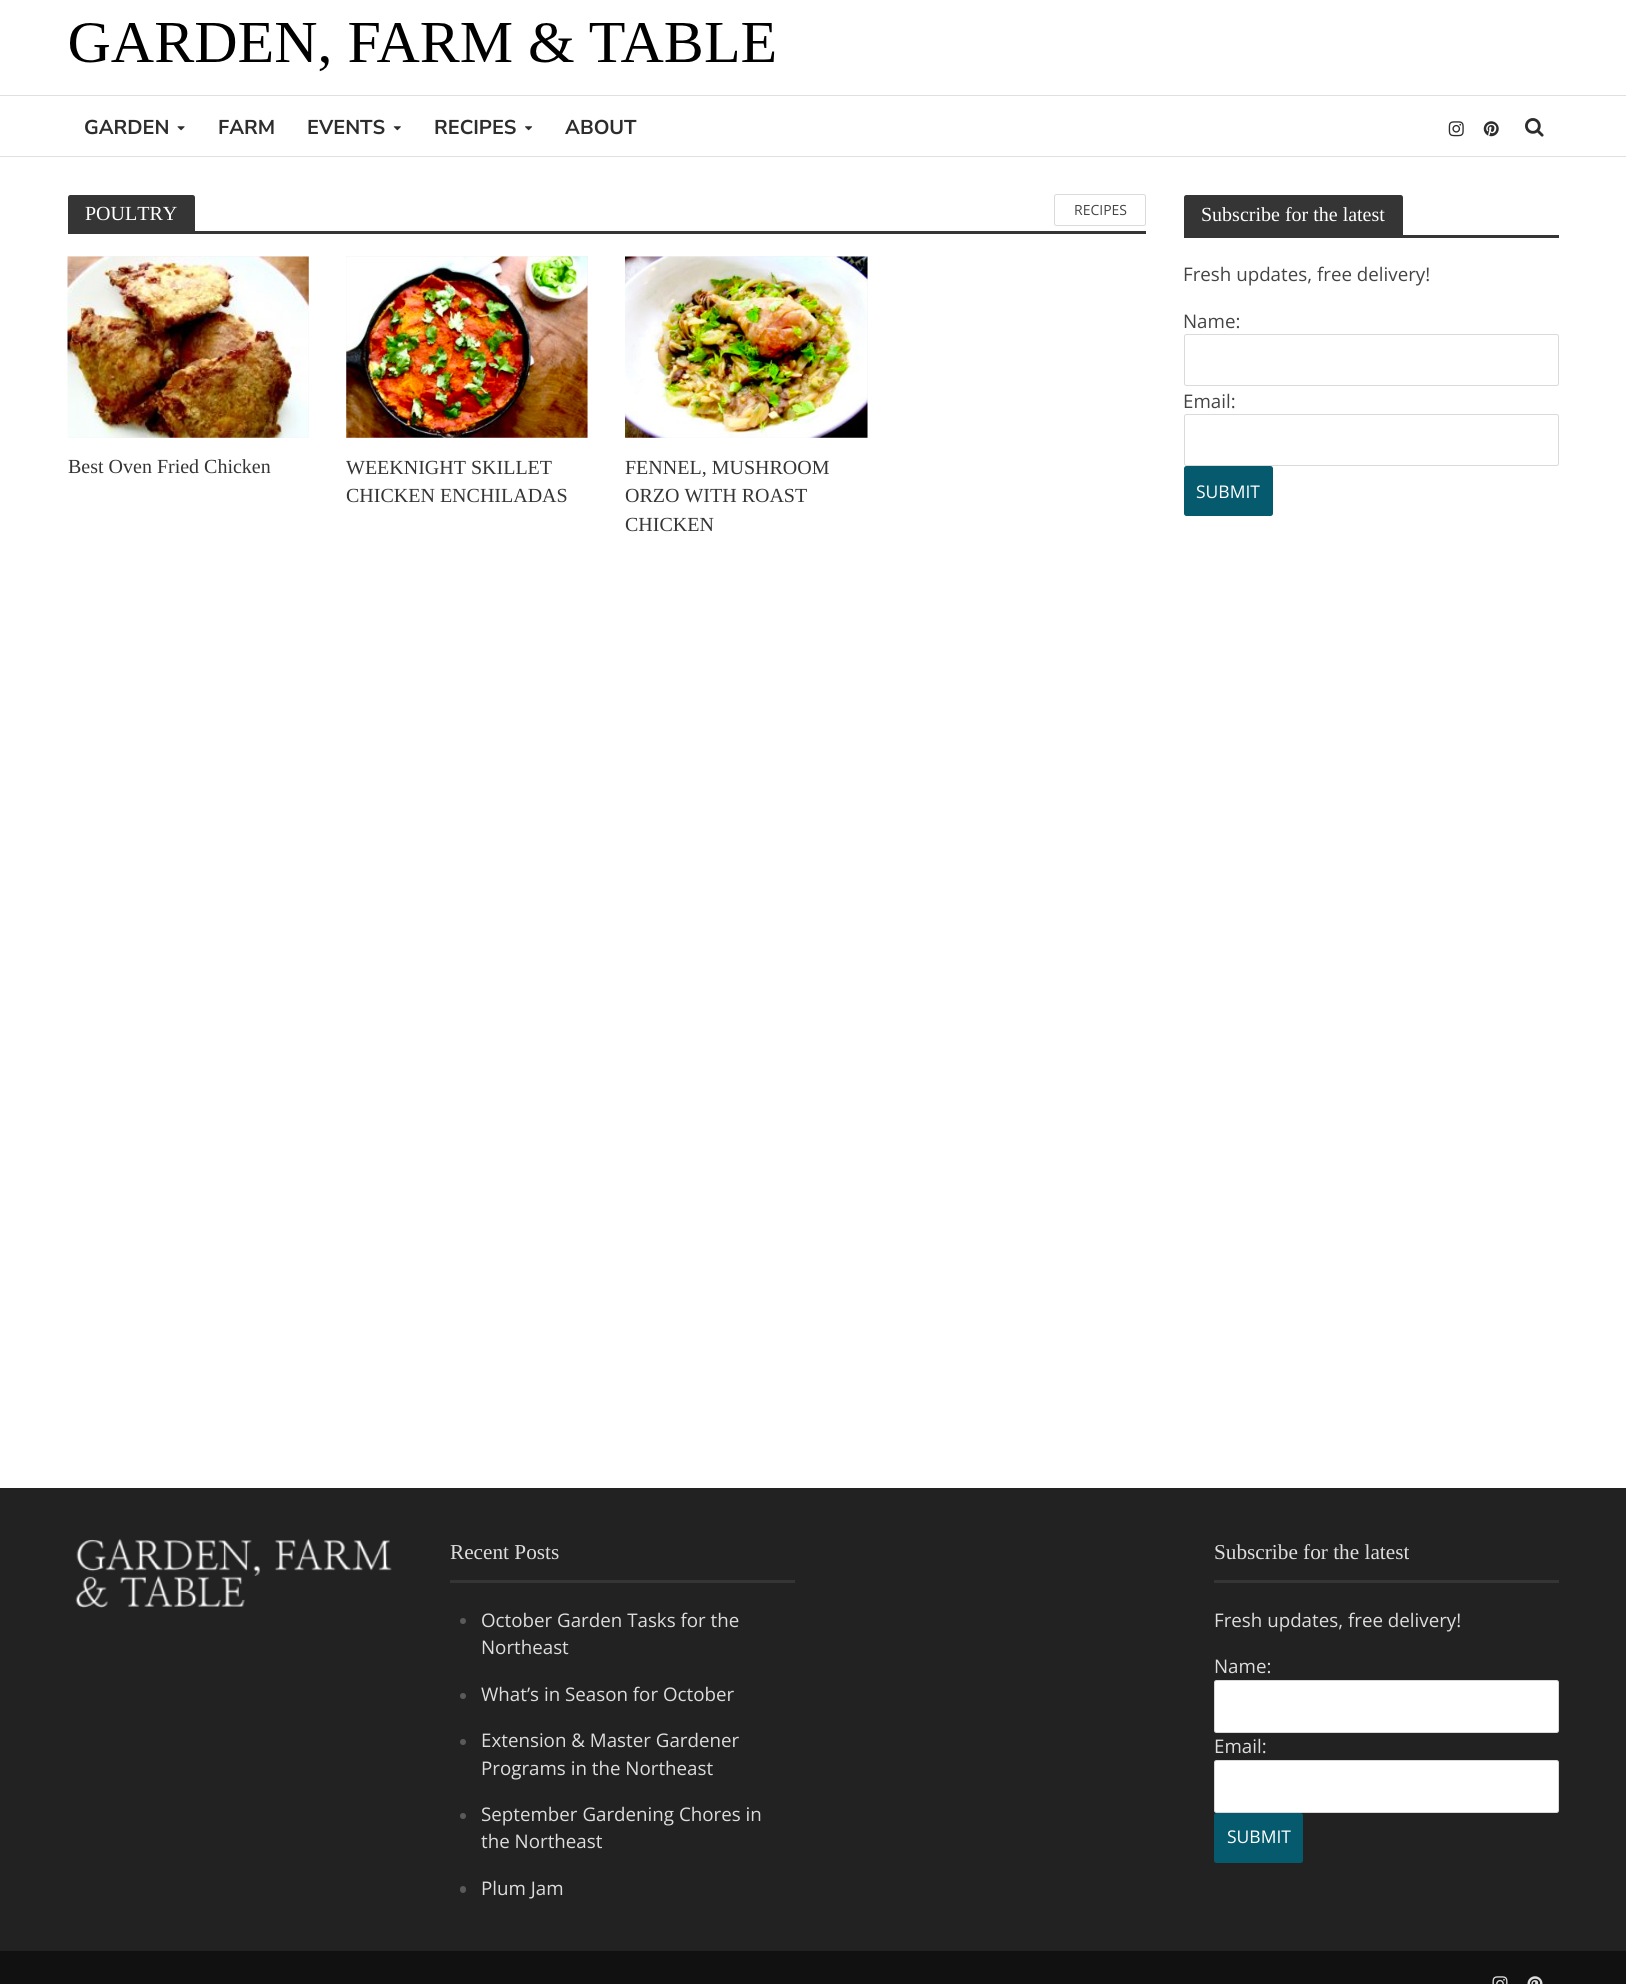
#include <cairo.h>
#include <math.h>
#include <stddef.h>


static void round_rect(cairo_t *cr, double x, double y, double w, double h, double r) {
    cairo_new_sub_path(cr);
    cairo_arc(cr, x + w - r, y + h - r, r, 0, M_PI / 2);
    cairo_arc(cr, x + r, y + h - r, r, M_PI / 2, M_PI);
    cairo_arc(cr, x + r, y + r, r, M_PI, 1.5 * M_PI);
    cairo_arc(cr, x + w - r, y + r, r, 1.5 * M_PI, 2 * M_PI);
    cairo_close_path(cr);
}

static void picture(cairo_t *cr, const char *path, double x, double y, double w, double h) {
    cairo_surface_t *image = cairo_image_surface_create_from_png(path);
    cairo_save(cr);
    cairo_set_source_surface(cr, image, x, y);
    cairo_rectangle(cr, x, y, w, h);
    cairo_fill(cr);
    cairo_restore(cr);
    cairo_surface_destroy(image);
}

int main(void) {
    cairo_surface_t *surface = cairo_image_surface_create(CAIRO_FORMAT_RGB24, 1626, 1984);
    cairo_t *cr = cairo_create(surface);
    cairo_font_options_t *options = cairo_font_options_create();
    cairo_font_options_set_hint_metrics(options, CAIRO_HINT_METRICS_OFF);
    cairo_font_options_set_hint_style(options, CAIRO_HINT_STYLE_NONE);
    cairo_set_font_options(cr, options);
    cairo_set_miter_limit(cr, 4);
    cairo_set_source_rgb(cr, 1, 1, 1);
    cairo_paint(cr);
    picture(cr, "img1.png", 70, 23, 705, 49);
    cairo_set_source_rgb(cr, 0.878, 0.878, 0.878);
    cairo_rectangle(cr, 0, 95, 1626, 1);
    cairo_fill(cr);
    cairo_rectangle(cr, 0, 156, 1626, 1);
    cairo_fill(cr);
    cairo_select_font_face(cr, "Nunito Sans", CAIRO_FONT_SLANT_NORMAL, CAIRO_FONT_WEIGHT_BOLD);
    cairo_set_font_size(cr, 20);
    cairo_set_source_rgb(cr, 0.176, 0.176, 0.176);
    cairo_move_to(cr, 84, 134);
    cairo_show_text(cr, "GARDEN");
    picture(cr, "img2.png", 177, 126, 8, 5);
    cairo_move_to(cr, 218, 134);
    cairo_show_text(cr, "FARM");
    cairo_move_to(cr, 307, 134);
    cairo_show_text(cr, "EVENTS");
    picture(cr, "img3.png", 393, 126, 8, 5);
    cairo_move_to(cr, 434, 134);
    cairo_show_text(cr, "RECIPES");
    picture(cr, "img4.png", 525, 126, 8, 5);
    cairo_move_to(cr, 565, 134);
    cairo_show_text(cr, "ABOUT");
    picture(cr, "img5.png", 1448, 121, 16, 16);
    picture(cr, "img6.png", 1483, 121, 16, 16);
    picture(cr, "img7.png", 1525, 118, 19, 19);
    cairo_set_source_rgb(cr, 0.208, 0.208, 0.208);
    cairo_new_path(cr);
    cairo_move_to(cr, 70.5, 195);
    cairo_line_to(cr, 192.5, 195);
    cairo_curve_to(cr, 194, 195, 195, 196, 195, 197.5);
    cairo_line_to(cr, 195, 231);
    cairo_line_to(cr, 68, 231);
    cairo_line_to(cr, 68, 197.5);
    cairo_curve_to(cr, 68, 196, 69, 195, 70.5, 195);
    cairo_close_path(cr);
    cairo_fill(cr);
    cairo_select_font_face(cr, "Liberation Serif", CAIRO_FONT_SLANT_NORMAL, CAIRO_FONT_WEIGHT_NORMAL);
    cairo_set_source_rgb(cr, 1, 1, 1);
    cairo_move_to(cr, 85, 220);
    cairo_show_text(cr, "POULTRY");
    round_rect(cr, 1054.5, 194.5, 91, 31, 2);
    cairo_set_source_rgb(cr, 0.855, 0.855, 0.855);
    cairo_set_line_width(cr, 1);
    cairo_stroke(cr);
    cairo_select_font_face(cr, "Open Sans", CAIRO_FONT_SLANT_NORMAL, CAIRO_FONT_WEIGHT_NORMAL);
    cairo_set_font_size(cr, 14);
    cairo_set_source_rgb(cr, 0.267, 0.267, 0.267);
    cairo_move_to(cr, 1074, 215);
    cairo_show_text(cr, "RECIPES");
    cairo_set_source_rgb(cr, 0.208, 0.208, 0.208);
    cairo_rectangle(cr, 68, 231, 1078, 3);
    cairo_fill(cr);
    cairo_set_source_rgb(cr, 0.949, 0.949, 0.949);
    cairo_rectangle(cr, 68, 256, 241, 182);
    cairo_fill(cr);
    picture(cr, "img8.png", 67, 256, 242, 182);
    cairo_select_font_face(cr, "Liberation Serif", CAIRO_FONT_SLANT_NORMAL, CAIRO_FONT_WEIGHT_NORMAL);
    cairo_set_font_size(cr, 20);
    cairo_set_source_rgb(cr, 0.208, 0.208, 0.208);
    cairo_move_to(cr, 68, 473);
    cairo_show_text(cr, "Best Oven Fried Chicken");
    cairo_set_source_rgb(cr, 0.949, 0.949, 0.949);
    cairo_rectangle(cr, 346, 256, 242, 182);
    cairo_fill(cr);
    picture(cr, "img9.png", 346, 256, 242, 182);
    cairo_set_source_rgb(cr, 0.208, 0.208, 0.208);
    cairo_move_to(cr, 346, 474);
    cairo_show_text(cr, "WEEKNIGHT SKILLET");
    cairo_move_to(cr, 346, 502);
    cairo_show_text(cr, "CHICKEN ENCHILADAS");
    cairo_set_source_rgb(cr, 0.949, 0.949, 0.949);
    cairo_rectangle(cr, 625, 256, 243, 182);
    cairo_fill(cr);
    picture(cr, "img10.png", 625, 256, 243, 182);
    cairo_set_source_rgb(cr, 0.208, 0.208, 0.208);
    cairo_move_to(cr, 625, 474);
    cairo_show_text(cr, "FENNEL, MUSHROOM");
    cairo_move_to(cr, 625, 502);
    cairo_show_text(cr, "ORZO WITH ROAST");
    cairo_move_to(cr, 625, 531);
    cairo_show_text(cr, "CHICKEN");
    cairo_new_path(cr);
    cairo_move_to(cr, 1186.5, 195);
    cairo_line_to(cr, 1400.5, 195);
    cairo_curve_to(cr, 1402, 195, 1403, 196, 1403, 197.5);
    cairo_line_to(cr, 1403, 235);
    cairo_line_to(cr, 1184, 235);
    cairo_line_to(cr, 1184, 197.5);
    cairo_curve_to(cr, 1184, 196, 1185, 195, 1186.5, 195);
    cairo_close_path(cr);
    cairo_fill(cr);
    cairo_set_source_rgb(cr, 1, 1, 1);
    cairo_move_to(cr, 1201, 221);
    cairo_show_text(cr, "Subscribe for the latest");
    cairo_set_source_rgb(cr, 0.208, 0.208, 0.208);
    cairo_rectangle(cr, 1184, 235, 375, 3);
    cairo_fill(cr);
    cairo_select_font_face(cr, "Open Sans", CAIRO_FONT_SLANT_NORMAL, CAIRO_FONT_WEIGHT_NORMAL);
    cairo_set_font_size(cr, 18.75);
    cairo_set_source_rgb(cr, 0.267, 0.267, 0.267);
    cairo_move_to(cr, 1183, 281);
    cairo_show_text(cr, "Fresh updates, free delivery!");
    cairo_move_to(cr, 1183, 328);
    cairo_show_text(cr, "Name:");
    round_rect(cr, 1184.5, 334.5, 374, 51, 2);
    cairo_set_source_rgb(cr, 0.855, 0.855, 0.855);
    cairo_stroke(cr);
    cairo_set_source_rgb(cr, 0.267, 0.267, 0.267);
    cairo_move_to(cr, 1183, 408);
    cairo_show_text(cr, "Email:");
    round_rect(cr, 1184.5, 414.5, 374, 51, 2);
    cairo_set_source_rgb(cr, 0.855, 0.855, 0.855);
    cairo_stroke(cr);
    cairo_set_source_rgb(cr, 0.024, 0.353, 0.427);
    round_rect(cr, 1184, 466, 89, 50, 2.5);
    cairo_fill(cr);
    cairo_set_font_size(cr, 17.5);
    cairo_set_source_rgb(cr, 1, 1, 1);
    cairo_move_to(cr, 1196, 498);
    cairo_show_text(cr, "SUBMIT");
    cairo_set_source_rgb(cr, 0.133, 0.133, 0.133);
    cairo_rectangle(cr, 0, 1488, 1626, 463);
    cairo_fill(cr);
    picture(cr, "img11.png", 75, 1538, 317, 70);
    cairo_select_font_face(cr, "Liberation Serif", CAIRO_FONT_SLANT_NORMAL, CAIRO_FONT_WEIGHT_NORMAL);
    cairo_set_font_size(cr, 21.25);
    cairo_set_source_rgb(cr, 0.867, 0.867, 0.867);
    cairo_move_to(cr, 450, 1559);
    cairo_show_text(cr, "Recent Posts");
    cairo_set_source_rgb(cr, 0.208, 0.208, 0.208);
    cairo_rectangle(cr, 450, 1580, 345, 3);
    cairo_fill(cr);
    cairo_set_source_rgb(cr, 0.353, 0.353, 0.353);
    cairo_arc(cr, 463, 1621, 3, 0, 2 * M_PI);
    cairo_fill(cr);
    cairo_select_font_face(cr, "Open Sans", CAIRO_FONT_SLANT_NORMAL, CAIRO_FONT_WEIGHT_NORMAL);
    cairo_set_font_size(cr, 18.75);
    cairo_set_source_rgb(cr, 0.867, 0.867, 0.867);
    cairo_move_to(cr, 481, 1627);
    cairo_show_text(cr, "October Garden Tasks for the");
    cairo_move_to(cr, 481, 1654);
    cairo_show_text(cr, "Northeast");
    cairo_set_source_rgb(cr, 0.353, 0.353, 0.353);
    cairo_new_path(cr);
    cairo_arc(cr, 463, 1696, 3, 0, 2 * M_PI);
    cairo_fill(cr);
    cairo_set_source_rgb(cr, 0.867, 0.867, 0.867);
    cairo_move_to(cr, 481, 1701);
    cairo_show_text(cr, "What’s in Season for October");
    cairo_set_source_rgb(cr, 0.353, 0.353, 0.353);
    cairo_new_path(cr);
    cairo_arc(cr, 463, 1742, 3, 0, 2 * M_PI);
    cairo_fill(cr);
    cairo_set_source_rgb(cr, 0.867, 0.867, 0.867);
    cairo_move_to(cr, 481, 1747);
    cairo_show_text(cr, "Extension & Master Gardener");
    cairo_move_to(cr, 481, 1775);
    cairo_show_text(cr, "Programs in the Northeast");
    cairo_set_source_rgb(cr, 0.353, 0.353, 0.353);
    cairo_new_path(cr);
    cairo_arc(cr, 463, 1816, 3, 0, 2 * M_PI);
    cairo_fill(cr);
    cairo_set_source_rgb(cr, 0.867, 0.867, 0.867);
    cairo_move_to(cr, 481, 1821);
    cairo_show_text(cr, "September Gardening Chores in");
    cairo_move_to(cr, 481, 1848);
    cairo_show_text(cr, "the Northeast");
    cairo_set_source_rgb(cr, 0.353, 0.353, 0.353);
    round_rect(cr, 460, 1886, 6, 7, 3);
    cairo_fill(cr);
    cairo_set_source_rgb(cr, 0.867, 0.867, 0.867);
    cairo_move_to(cr, 481, 1895);
    cairo_show_text(cr, "Plum Jam");
    cairo_select_font_face(cr, "Liberation Serif", CAIRO_FONT_SLANT_NORMAL, CAIRO_FONT_WEIGHT_NORMAL);
    cairo_set_font_size(cr, 21.25);
    cairo_move_to(cr, 1214, 1559);
    cairo_show_text(cr, "Subscribe for the latest");
    cairo_set_source_rgb(cr, 0.208, 0.208, 0.208);
    cairo_rectangle(cr, 1214, 1580, 345, 3);
    cairo_fill(cr);
    cairo_select_font_face(cr, "Open Sans", CAIRO_FONT_SLANT_NORMAL, CAIRO_FONT_WEIGHT_NORMAL);
    cairo_set_font_size(cr, 18.75);
    cairo_set_source_rgb(cr, 0.867, 0.867, 0.867);
    cairo_move_to(cr, 1214, 1627);
    cairo_show_text(cr, "Fresh updates, free delivery!");
    cairo_move_to(cr, 1214, 1673);
    cairo_show_text(cr, "Name:");
    cairo_set_source_rgb(cr, 1, 1, 1);
    round_rect(cr, 1214, 1680, 345, 53, 2.5);
    cairo_fill(cr);
    round_rect(cr, 1214.5, 1680.5, 344, 52, 2);
    cairo_set_source_rgba(cr, 0.267, 0.267, 0.267, 0.2);
    cairo_stroke(cr);
    cairo_set_source_rgb(cr, 0.867, 0.867, 0.867);
    cairo_move_to(cr, 1214, 1753);
    cairo_show_text(cr, "Email:");
    cairo_set_source_rgb(cr, 1, 1, 1);
    round_rect(cr, 1214, 1760, 345, 53, 2.5);
    cairo_fill(cr);
    round_rect(cr, 1214.5, 1760.5, 344, 52, 2);
    cairo_set_source_rgba(cr, 0.267, 0.267, 0.267, 0.2);
    cairo_stroke(cr);
    cairo_set_source_rgb(cr, 0.024, 0.353, 0.427);
    round_rect(cr, 1214, 1813, 89, 50, 2.5);
    cairo_fill(cr);
    cairo_set_font_size(cr, 17.5);
    cairo_set_source_rgb(cr, 1, 1, 1);
    cairo_move_to(cr, 1227, 1843);
    cairo_show_text(cr, "SUBMIT");
    cairo_set_source_rgb(cr, 0.067, 0.067, 0.067);
    cairo_rectangle(cr, 0, 1951, 1626, 33);
    cairo_fill(cr);
    picture(cr, "img12.png", 1492, 1976, 16, 8);
    picture(cr, "img13.png", 1527, 1976, 16, 8);
    cairo_surface_write_to_png(surface, "page.png");
    cairo_font_options_destroy(options);
    cairo_destroy(cr);
    cairo_surface_destroy(surface);
    return 0;
}
